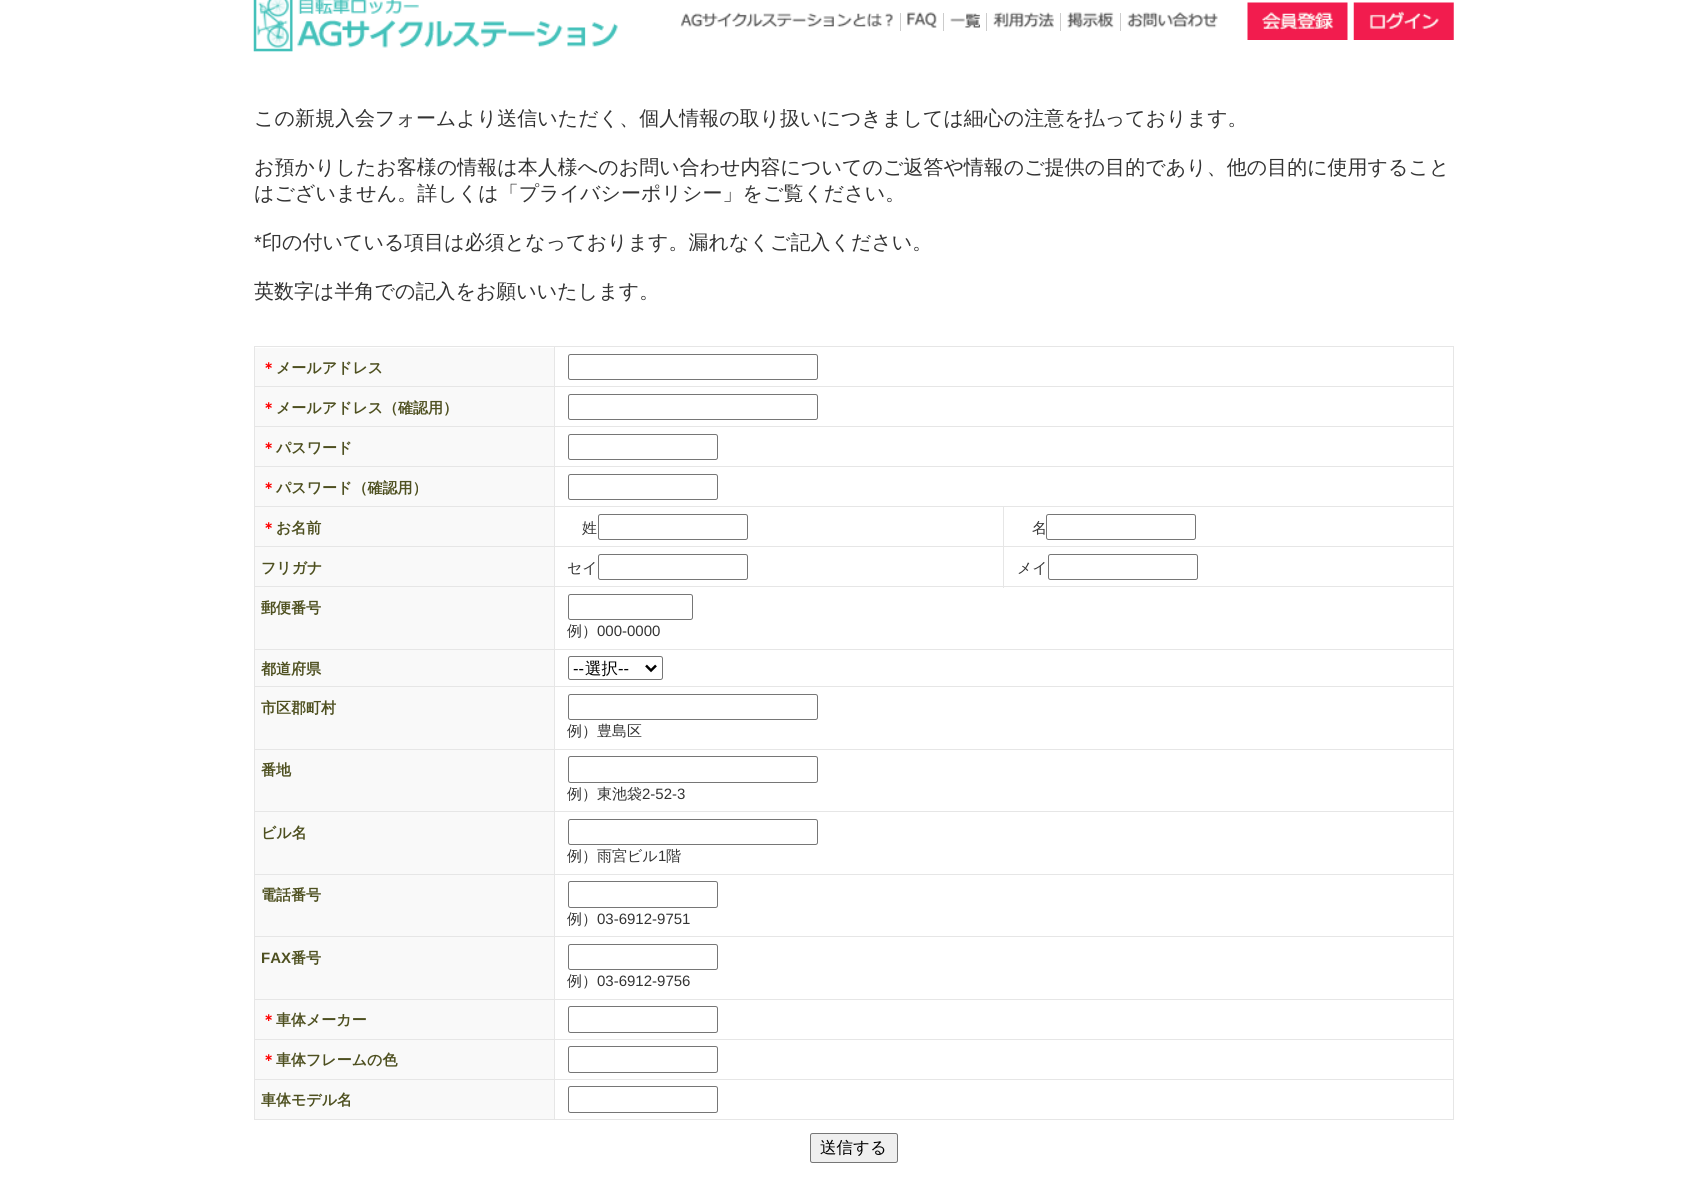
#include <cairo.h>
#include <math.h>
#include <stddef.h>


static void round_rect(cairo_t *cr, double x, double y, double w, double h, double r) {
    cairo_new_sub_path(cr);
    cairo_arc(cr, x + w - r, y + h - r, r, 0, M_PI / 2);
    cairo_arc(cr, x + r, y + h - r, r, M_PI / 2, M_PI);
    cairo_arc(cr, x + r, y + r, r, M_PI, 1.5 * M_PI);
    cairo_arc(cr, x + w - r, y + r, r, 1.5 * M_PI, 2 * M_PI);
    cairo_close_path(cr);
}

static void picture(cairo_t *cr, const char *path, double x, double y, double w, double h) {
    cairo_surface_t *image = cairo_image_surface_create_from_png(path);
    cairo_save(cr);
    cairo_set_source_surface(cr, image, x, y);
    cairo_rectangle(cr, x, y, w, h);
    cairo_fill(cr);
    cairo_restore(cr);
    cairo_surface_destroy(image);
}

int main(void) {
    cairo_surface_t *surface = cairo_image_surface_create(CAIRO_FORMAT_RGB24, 1707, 1186);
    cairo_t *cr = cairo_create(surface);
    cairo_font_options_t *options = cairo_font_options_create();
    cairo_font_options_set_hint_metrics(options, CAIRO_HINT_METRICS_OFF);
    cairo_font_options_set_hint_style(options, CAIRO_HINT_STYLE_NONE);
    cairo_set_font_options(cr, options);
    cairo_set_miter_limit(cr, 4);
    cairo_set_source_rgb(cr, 1, 1, 1);
    cairo_paint(cr);
    picture(cr, "img1.png", 253, 0, 365, 52);
    cairo_set_source_rgb(cr, 0.8, 0.8, 0.8);
    cairo_rectangle(cr, 900, 13, 1, 18);
    cairo_fill(cr);
    picture(cr, "img2.png", 680, 12, 213, 16);
    cairo_rectangle(cr, 943, 13, 1, 18);
    cairo_fill(cr);
    picture(cr, "img3.png", 907, 12, 30, 16);
    cairo_rectangle(cr, 986, 13, 1, 18);
    cairo_fill(cr);
    picture(cr, "img4.png", 950, 13, 30, 15);
    cairo_rectangle(cr, 1060, 13, 1, 18);
    cairo_fill(cr);
    picture(cr, "img5.png", 993, 12, 61, 16);
    cairo_rectangle(cr, 1120, 13, 1, 18);
    cairo_fill(cr);
    picture(cr, "img6.png", 1067, 12, 47, 16);
    picture(cr, "img7.png", 1127, 12, 91, 16);
    picture(cr, "img8.png", 1247, 2, 101, 38);
    picture(cr, "img9.png", 1353, 2, 101, 38);
    cairo_select_font_face(cr, "WenQuanYi Zen Hei Medium", CAIRO_FONT_SLANT_NORMAL, CAIRO_FONT_WEIGHT_NORMAL);
    cairo_set_font_size(cr, 20);
    cairo_set_source_rgb(cr, 0.2, 0.2, 0.2);
    cairo_move_to(cr, 254, 125);
    cairo_show_text(cr, "この新規入会フォームより送信いただく、個人情報の取り扱いにつきましては細心の注意を払っております。");
    cairo_move_to(cr, 254, 174);
    cairo_show_text(cr, "お預かりしたお客様の情報は本人様へのお問い合わせ内容についてのご返答や情報のご提供の目的であり、他の目的に使用すること");
    cairo_move_to(cr, 254, 200);
    cairo_show_text(cr, "はございません。詳しくは「プライバシーポリシー」をご覧ください。");
    cairo_select_font_face(cr, "Liberation Sans", CAIRO_FONT_SLANT_NORMAL, CAIRO_FONT_WEIGHT_NORMAL);
    cairo_move_to(cr, 254, 249);
    cairo_show_text(cr, "*");
    cairo_select_font_face(cr, "WenQuanYi Zen Hei Medium", CAIRO_FONT_SLANT_NORMAL, CAIRO_FONT_WEIGHT_NORMAL);
    cairo_move_to(cr, 262, 249);
    cairo_show_text(cr, "印の付いている項目は必須となっております。漏れなくご記入ください。");
    cairo_move_to(cr, 254, 298);
    cairo_show_text(cr, "英数字は半角での記入をお願いいたします。");
    cairo_set_source_rgb(cr, 0.973, 0.973, 0.973);
    cairo_rectangle(cr, 255, 348, 299, 301);
    cairo_fill(cr);
    cairo_set_source_rgb(cr, 0.902, 0.902, 0.902);
    cairo_rectangle(cr, 554, 346, 900, 1);
    cairo_fill(cr);
    cairo_rectangle(cr, 554, 386, 900, 1);
    cairo_fill(cr);
    cairo_rectangle(cr, 554, 426, 900, 1);
    cairo_fill(cr);
    cairo_rectangle(cr, 554, 466, 900, 1);
    cairo_fill(cr);
    cairo_rectangle(cr, 1003, 506, 451, 1);
    cairo_fill(cr);
    cairo_rectangle(cr, 1003, 546, 451, 1);
    cairo_fill(cr);
    cairo_rectangle(cr, 554, 586, 900, 1);
    cairo_fill(cr);
    cairo_rectangle(cr, 1003, 546, 1, 42);
    cairo_fill(cr);
    cairo_rectangle(cr, 554, 546, 450, 1);
    cairo_fill(cr);
    cairo_rectangle(cr, 1003, 506, 1, 42);
    cairo_fill(cr);
    cairo_rectangle(cr, 554, 506, 450, 1);
    cairo_fill(cr);
    cairo_rectangle(cr, 554, 649, 900, 1);
    cairo_fill(cr);
    cairo_set_source_rgb(cr, 0.973, 0.973, 0.973);
    cairo_rectangle(cr, 255, 650, 299, 99);
    cairo_fill(cr);
    cairo_set_source_rgb(cr, 0.902, 0.902, 0.902);
    cairo_rectangle(cr, 554, 686, 900, 1);
    cairo_fill(cr);
    cairo_rectangle(cr, 554, 749, 900, 1);
    cairo_fill(cr);
    cairo_set_source_rgb(cr, 0.973, 0.973, 0.973);
    cairo_rectangle(cr, 255, 750, 299, 124);
    cairo_fill(cr);
    cairo_set_source_rgb(cr, 0.902, 0.902, 0.902);
    cairo_rectangle(cr, 554, 811, 900, 1);
    cairo_fill(cr);
    cairo_rectangle(cr, 554, 874, 900, 1);
    cairo_fill(cr);
    cairo_set_source_rgb(cr, 0.973, 0.973, 0.973);
    cairo_rectangle(cr, 255, 875, 299, 124);
    cairo_fill(cr);
    cairo_set_source_rgb(cr, 0.902, 0.902, 0.902);
    cairo_rectangle(cr, 554, 936, 900, 1);
    cairo_fill(cr);
    cairo_rectangle(cr, 554, 999, 900, 1);
    cairo_fill(cr);
    cairo_rectangle(cr, 554, 1039, 900, 1);
    cairo_fill(cr);
    cairo_rectangle(cr, 554, 1079, 900, 1);
    cairo_fill(cr);
    cairo_rectangle(cr, 1453, 1079, 1, 41);
    cairo_fill(cr);
    cairo_rectangle(cr, 554, 1119, 900, 1);
    cairo_fill(cr);
    cairo_rectangle(cr, 554, 1079, 1, 41);
    cairo_fill(cr);
    cairo_rectangle(cr, 254, 1079, 301, 1);
    cairo_fill(cr);
    cairo_rectangle(cr, 554, 1039, 1, 41);
    cairo_fill(cr);
    cairo_rectangle(cr, 254, 1039, 301, 1);
    cairo_fill(cr);
    cairo_rectangle(cr, 554, 999, 1, 41);
    cairo_fill(cr);
    cairo_rectangle(cr, 254, 999, 301, 1);
    cairo_fill(cr);
    cairo_rectangle(cr, 554, 936, 1, 64);
    cairo_fill(cr);
    cairo_rectangle(cr, 254, 936, 301, 1);
    cairo_fill(cr);
    cairo_rectangle(cr, 554, 874, 1, 64);
    cairo_fill(cr);
    cairo_rectangle(cr, 254, 874, 301, 1);
    cairo_fill(cr);
    cairo_rectangle(cr, 554, 811, 1, 64);
    cairo_fill(cr);
    cairo_rectangle(cr, 254, 811, 301, 1);
    cairo_fill(cr);
    cairo_rectangle(cr, 554, 749, 1, 64);
    cairo_fill(cr);
    cairo_rectangle(cr, 254, 749, 301, 1);
    cairo_fill(cr);
    cairo_rectangle(cr, 554, 686, 1, 64);
    cairo_fill(cr);
    cairo_rectangle(cr, 254, 686, 301, 1);
    cairo_fill(cr);
    cairo_rectangle(cr, 554, 649, 1, 39);
    cairo_fill(cr);
    cairo_rectangle(cr, 254, 649, 301, 1);
    cairo_fill(cr);
    cairo_rectangle(cr, 554, 586, 1, 64);
    cairo_fill(cr);
    cairo_rectangle(cr, 254, 586, 301, 1);
    cairo_fill(cr);
    cairo_rectangle(cr, 554, 546, 1, 42);
    cairo_fill(cr);
    cairo_rectangle(cr, 254, 546, 301, 1);
    cairo_fill(cr);
    cairo_rectangle(cr, 554, 506, 1, 42);
    cairo_fill(cr);
    cairo_rectangle(cr, 254, 506, 301, 1);
    cairo_fill(cr);
    cairo_rectangle(cr, 554, 466, 1, 42);
    cairo_fill(cr);
    cairo_rectangle(cr, 254, 466, 301, 1);
    cairo_fill(cr);
    cairo_rectangle(cr, 554, 426, 1, 42);
    cairo_fill(cr);
    cairo_rectangle(cr, 254, 426, 301, 1);
    cairo_fill(cr);
    cairo_rectangle(cr, 554, 386, 1, 42);
    cairo_fill(cr);
    cairo_rectangle(cr, 254, 386, 301, 1);
    cairo_fill(cr);
    cairo_rectangle(cr, 554, 346, 1, 42);
    cairo_fill(cr);
    cairo_rectangle(cr, 254, 346, 301, 1);
    cairo_fill(cr);
    cairo_rectangle(cr, 254, 1119, 301, 1);
    cairo_fill(cr);
    cairo_rectangle(cr, 254, 1079, 1, 41);
    cairo_fill(cr);
    cairo_rectangle(cr, 254, 1039, 1, 41);
    cairo_fill(cr);
    cairo_rectangle(cr, 254, 999, 1, 41);
    cairo_fill(cr);
    cairo_rectangle(cr, 254, 936, 1, 64);
    cairo_fill(cr);
    cairo_rectangle(cr, 254, 874, 1, 64);
    cairo_fill(cr);
    cairo_rectangle(cr, 254, 811, 1, 64);
    cairo_fill(cr);
    cairo_rectangle(cr, 254, 749, 1, 64);
    cairo_fill(cr);
    cairo_rectangle(cr, 254, 686, 1, 64);
    cairo_fill(cr);
    cairo_rectangle(cr, 254, 649, 1, 39);
    cairo_fill(cr);
    cairo_rectangle(cr, 254, 586, 1, 64);
    cairo_fill(cr);
    cairo_rectangle(cr, 254, 546, 1, 42);
    cairo_fill(cr);
    cairo_rectangle(cr, 254, 506, 1, 42);
    cairo_fill(cr);
    cairo_rectangle(cr, 254, 466, 1, 42);
    cairo_fill(cr);
    cairo_rectangle(cr, 254, 426, 1, 42);
    cairo_fill(cr);
    cairo_rectangle(cr, 254, 386, 1, 42);
    cairo_fill(cr);
    cairo_rectangle(cr, 254, 346, 1, 42);
    cairo_fill(cr);
    cairo_select_font_face(cr, "WenQuanYi Zen Hei", CAIRO_FONT_SLANT_NORMAL, CAIRO_FONT_WEIGHT_BOLD);
    cairo_set_font_size(cr, 15);
    cairo_set_source_rgb(cr, 1, 0, 0);
    cairo_move_to(cr, 261, 373);
    cairo_show_text(cr, "＊");
    cairo_set_source_rgb(cr, 0.306, 0.314, 0.125);
    cairo_move_to(cr, 276, 373);
    cairo_show_text(cr, "メールアドレス");
    cairo_set_source_rgb(cr, 0.902, 0.902, 0.902);
    cairo_rectangle(cr, 1453, 1039, 1, 41);
    cairo_fill(cr);
    cairo_rectangle(cr, 1453, 999, 1, 41);
    cairo_fill(cr);
    cairo_rectangle(cr, 1453, 936, 1, 64);
    cairo_fill(cr);
    cairo_rectangle(cr, 1453, 874, 1, 64);
    cairo_fill(cr);
    cairo_rectangle(cr, 1453, 811, 1, 64);
    cairo_fill(cr);
    cairo_rectangle(cr, 1453, 749, 1, 64);
    cairo_fill(cr);
    cairo_rectangle(cr, 1453, 686, 1, 64);
    cairo_fill(cr);
    cairo_rectangle(cr, 1453, 649, 1, 39);
    cairo_fill(cr);
    cairo_rectangle(cr, 1453, 586, 1, 64);
    cairo_fill(cr);
    cairo_rectangle(cr, 1453, 546, 1, 42);
    cairo_fill(cr);
    cairo_rectangle(cr, 1453, 506, 1, 42);
    cairo_fill(cr);
    cairo_rectangle(cr, 1453, 466, 1, 42);
    cairo_fill(cr);
    cairo_rectangle(cr, 1453, 426, 1, 42);
    cairo_fill(cr);
    cairo_rectangle(cr, 1453, 386, 1, 42);
    cairo_fill(cr);
    cairo_rectangle(cr, 1453, 346, 1, 42);
    cairo_fill(cr);
    round_rect(cr, 568.5, 354.5, 249, 25, 2);
    cairo_set_source_rgb(cr, 0.463, 0.463, 0.463);
    cairo_set_line_width(cr, 1);
    cairo_stroke(cr);
    cairo_set_source_rgb(cr, 1, 0, 0);
    cairo_move_to(cr, 261, 413);
    cairo_show_text(cr, "＊");
    cairo_set_source_rgb(cr, 0.306, 0.314, 0.125);
    cairo_move_to(cr, 276, 413);
    cairo_show_text(cr, "メールアドレス（確認用）");
    round_rect(cr, 568.5, 394.5, 249, 25, 2);
    cairo_set_source_rgb(cr, 0.463, 0.463, 0.463);
    cairo_stroke(cr);
    cairo_set_source_rgb(cr, 1, 0, 0);
    cairo_move_to(cr, 261, 453);
    cairo_show_text(cr, "＊");
    cairo_set_source_rgb(cr, 0.306, 0.314, 0.125);
    cairo_move_to(cr, 276, 453);
    cairo_show_text(cr, "パスワード");
    round_rect(cr, 568.5, 434.5, 149, 25, 2);
    cairo_set_source_rgb(cr, 0.463, 0.463, 0.463);
    cairo_stroke(cr);
    cairo_set_source_rgb(cr, 1, 0, 0);
    cairo_move_to(cr, 261, 493);
    cairo_show_text(cr, "＊");
    cairo_set_source_rgb(cr, 0.306, 0.314, 0.125);
    cairo_move_to(cr, 276, 493);
    cairo_show_text(cr, "パスワード（確認用）");
    round_rect(cr, 568.5, 474.5, 149, 25, 2);
    cairo_set_source_rgb(cr, 0.463, 0.463, 0.463);
    cairo_stroke(cr);
    cairo_set_source_rgb(cr, 1, 0, 0);
    cairo_move_to(cr, 261, 533);
    cairo_show_text(cr, "＊");
    cairo_set_source_rgb(cr, 0.306, 0.314, 0.125);
    cairo_move_to(cr, 276, 533);
    cairo_show_text(cr, "お名前");
    cairo_select_font_face(cr, "WenQuanYi Zen Hei Medium", CAIRO_FONT_SLANT_NORMAL, CAIRO_FONT_WEIGHT_NORMAL);
    cairo_set_source_rgb(cr, 0.2, 0.2, 0.2);
    cairo_move_to(cr, 582, 533);
    cairo_show_text(cr, "姓");
    round_rect(cr, 598.5, 514.5, 149, 25, 2);
    cairo_set_source_rgb(cr, 0.463, 0.463, 0.463);
    cairo_stroke(cr);
    cairo_set_source_rgb(cr, 0.2, 0.2, 0.2);
    cairo_move_to(cr, 1032, 533);
    cairo_show_text(cr, "名");
    round_rect(cr, 1046.5, 514.5, 149, 25, 2);
    cairo_set_source_rgb(cr, 0.463, 0.463, 0.463);
    cairo_stroke(cr);
    cairo_select_font_face(cr, "WenQuanYi Zen Hei", CAIRO_FONT_SLANT_NORMAL, CAIRO_FONT_WEIGHT_BOLD);
    cairo_set_source_rgb(cr, 0.306, 0.314, 0.125);
    cairo_move_to(cr, 261, 573);
    cairo_show_text(cr, "フリガナ");
    cairo_select_font_face(cr, "WenQuanYi Zen Hei Medium", CAIRO_FONT_SLANT_NORMAL, CAIRO_FONT_WEIGHT_NORMAL);
    cairo_set_source_rgb(cr, 0.2, 0.2, 0.2);
    cairo_move_to(cr, 567, 573);
    cairo_show_text(cr, "セイ");
    round_rect(cr, 598.5, 554.5, 149, 25, 2);
    cairo_set_source_rgb(cr, 0.463, 0.463, 0.463);
    cairo_stroke(cr);
    cairo_set_source_rgb(cr, 0.2, 0.2, 0.2);
    cairo_move_to(cr, 1017, 573);
    cairo_show_text(cr, "メイ");
    round_rect(cr, 1048.5, 554.5, 149, 25, 2);
    cairo_set_source_rgb(cr, 0.463, 0.463, 0.463);
    cairo_stroke(cr);
    cairo_select_font_face(cr, "WenQuanYi Zen Hei", CAIRO_FONT_SLANT_NORMAL, CAIRO_FONT_WEIGHT_BOLD);
    cairo_set_source_rgb(cr, 0.306, 0.314, 0.125);
    cairo_move_to(cr, 261, 613);
    cairo_show_text(cr, "郵便番号");
    round_rect(cr, 568.5, 594.5, 124, 25, 2);
    cairo_set_source_rgb(cr, 0.463, 0.463, 0.463);
    cairo_stroke(cr);
    cairo_select_font_face(cr, "WenQuanYi Zen Hei Medium", CAIRO_FONT_SLANT_NORMAL, CAIRO_FONT_WEIGHT_NORMAL);
    cairo_set_source_rgb(cr, 0.2, 0.2, 0.2);
    cairo_move_to(cr, 567, 636);
    cairo_show_text(cr, "例）");
    cairo_select_font_face(cr, "Liberation Sans", CAIRO_FONT_SLANT_NORMAL, CAIRO_FONT_WEIGHT_NORMAL);
    cairo_move_to(cr, 597, 636);
    cairo_show_text(cr, "000-0000");
    cairo_select_font_face(cr, "WenQuanYi Zen Hei", CAIRO_FONT_SLANT_NORMAL, CAIRO_FONT_WEIGHT_BOLD);
    cairo_set_source_rgb(cr, 0.306, 0.314, 0.125);
    cairo_move_to(cr, 261, 674);
    cairo_show_text(cr, "都道府県");
    round_rect(cr, 568.5, 656.5, 94, 23, 2);
    cairo_set_source_rgb(cr, 0.463, 0.463, 0.463);
    cairo_stroke(cr);
    cairo_new_path(cr);
    cairo_move_to(cr, 646, 665.5);
    cairo_line_to(cr, 651, 670.5);
    cairo_line_to(cr, 656, 665.5);
    cairo_set_source_rgb(cr, 0, 0, 0);
    cairo_set_line_width(cr, 2.5);
    cairo_stroke(cr);
    cairo_select_font_face(cr, "Liberation Sans", CAIRO_FONT_SLANT_NORMAL, CAIRO_FONT_WEIGHT_NORMAL);
    cairo_set_font_size(cr, 16.5);
    cairo_move_to(cr, 573, 674);
    cairo_show_text(cr, "--");
    cairo_select_font_face(cr, "WenQuanYi Zen Hei Medium", CAIRO_FONT_SLANT_NORMAL, CAIRO_FONT_WEIGHT_NORMAL);
    cairo_move_to(cr, 585, 674);
    cairo_show_text(cr, "選択");
    cairo_select_font_face(cr, "Liberation Sans", CAIRO_FONT_SLANT_NORMAL, CAIRO_FONT_WEIGHT_NORMAL);
    cairo_move_to(cr, 618, 674);
    cairo_show_text(cr, "--");
    cairo_select_font_face(cr, "WenQuanYi Zen Hei", CAIRO_FONT_SLANT_NORMAL, CAIRO_FONT_WEIGHT_BOLD);
    cairo_set_font_size(cr, 15);
    cairo_set_source_rgb(cr, 0.306, 0.314, 0.125);
    cairo_move_to(cr, 261, 713);
    cairo_show_text(cr, "市区郡町村");
    round_rect(cr, 568.5, 694.5, 249, 25, 2);
    cairo_set_source_rgb(cr, 0.463, 0.463, 0.463);
    cairo_set_line_width(cr, 1);
    cairo_stroke(cr);
    cairo_select_font_face(cr, "WenQuanYi Zen Hei Medium", CAIRO_FONT_SLANT_NORMAL, CAIRO_FONT_WEIGHT_NORMAL);
    cairo_set_source_rgb(cr, 0.2, 0.2, 0.2);
    cairo_move_to(cr, 567, 736);
    cairo_show_text(cr, "例）豊島区");
    cairo_select_font_face(cr, "WenQuanYi Zen Hei", CAIRO_FONT_SLANT_NORMAL, CAIRO_FONT_WEIGHT_BOLD);
    cairo_set_source_rgb(cr, 0.306, 0.314, 0.125);
    cairo_move_to(cr, 261, 775);
    cairo_show_text(cr, "番地");
    round_rect(cr, 568.5, 756.5, 249, 26, 2);
    cairo_set_source_rgb(cr, 0.463, 0.463, 0.463);
    cairo_stroke(cr);
    cairo_select_font_face(cr, "WenQuanYi Zen Hei Medium", CAIRO_FONT_SLANT_NORMAL, CAIRO_FONT_WEIGHT_NORMAL);
    cairo_set_source_rgb(cr, 0.2, 0.2, 0.2);
    cairo_move_to(cr, 567, 799);
    cairo_show_text(cr, "例）東池袋");
    cairo_select_font_face(cr, "Liberation Sans", CAIRO_FONT_SLANT_NORMAL, CAIRO_FONT_WEIGHT_NORMAL);
    cairo_move_to(cr, 642, 799);
    cairo_show_text(cr, "2-52-3");
    cairo_select_font_face(cr, "WenQuanYi Zen Hei", CAIRO_FONT_SLANT_NORMAL, CAIRO_FONT_WEIGHT_BOLD);
    cairo_set_source_rgb(cr, 0.306, 0.314, 0.125);
    cairo_move_to(cr, 261, 838);
    cairo_show_text(cr, "ビル名");
    round_rect(cr, 568.5, 819.5, 249, 25, 2);
    cairo_set_source_rgb(cr, 0.463, 0.463, 0.463);
    cairo_stroke(cr);
    cairo_select_font_face(cr, "WenQuanYi Zen Hei Medium", CAIRO_FONT_SLANT_NORMAL, CAIRO_FONT_WEIGHT_NORMAL);
    cairo_set_source_rgb(cr, 0.2, 0.2, 0.2);
    cairo_move_to(cr, 567, 861);
    cairo_show_text(cr, "例）雨宮ビル");
    cairo_select_font_face(cr, "Liberation Sans", CAIRO_FONT_SLANT_NORMAL, CAIRO_FONT_WEIGHT_NORMAL);
    cairo_move_to(cr, 658, 861);
    cairo_show_text(cr, "1");
    cairo_select_font_face(cr, "WenQuanYi Zen Hei Medium", CAIRO_FONT_SLANT_NORMAL, CAIRO_FONT_WEIGHT_NORMAL);
    cairo_move_to(cr, 666, 861);
    cairo_show_text(cr, "階");
    cairo_select_font_face(cr, "WenQuanYi Zen Hei", CAIRO_FONT_SLANT_NORMAL, CAIRO_FONT_WEIGHT_BOLD);
    cairo_set_source_rgb(cr, 0.306, 0.314, 0.125);
    cairo_move_to(cr, 261, 900);
    cairo_show_text(cr, "電話番号");
    round_rect(cr, 568.5, 881.5, 149, 26, 2);
    cairo_set_source_rgb(cr, 0.463, 0.463, 0.463);
    cairo_stroke(cr);
    cairo_select_font_face(cr, "WenQuanYi Zen Hei Medium", CAIRO_FONT_SLANT_NORMAL, CAIRO_FONT_WEIGHT_NORMAL);
    cairo_set_source_rgb(cr, 0.2, 0.2, 0.2);
    cairo_move_to(cr, 567, 924);
    cairo_show_text(cr, "例）");
    cairo_select_font_face(cr, "Liberation Sans", CAIRO_FONT_SLANT_NORMAL, CAIRO_FONT_WEIGHT_NORMAL);
    cairo_move_to(cr, 597, 924);
    cairo_show_text(cr, "03-6912-9751");
    cairo_select_font_face(cr, "Liberation Sans", CAIRO_FONT_SLANT_NORMAL, CAIRO_FONT_WEIGHT_BOLD);
    cairo_set_source_rgb(cr, 0.306, 0.314, 0.125);
    cairo_move_to(cr, 261, 963);
    cairo_show_text(cr, "FAX");
    cairo_select_font_face(cr, "WenQuanYi Zen Hei", CAIRO_FONT_SLANT_NORMAL, CAIRO_FONT_WEIGHT_BOLD);
    cairo_move_to(cr, 291, 963);
    cairo_show_text(cr, "番号");
    round_rect(cr, 568.5, 944.5, 149, 25, 2);
    cairo_set_source_rgb(cr, 0.463, 0.463, 0.463);
    cairo_stroke(cr);
    cairo_select_font_face(cr, "WenQuanYi Zen Hei Medium", CAIRO_FONT_SLANT_NORMAL, CAIRO_FONT_WEIGHT_NORMAL);
    cairo_set_source_rgb(cr, 0.2, 0.2, 0.2);
    cairo_move_to(cr, 567, 986);
    cairo_show_text(cr, "例）");
    cairo_select_font_face(cr, "Liberation Sans", CAIRO_FONT_SLANT_NORMAL, CAIRO_FONT_WEIGHT_NORMAL);
    cairo_move_to(cr, 597, 986);
    cairo_show_text(cr, "03-6912-9756");
    cairo_set_source_rgb(cr, 0.973, 0.973, 0.973);
    cairo_rectangle(cr, 255, 1000, 299, 39);
    cairo_fill(cr);
    cairo_select_font_face(cr, "WenQuanYi Zen Hei", CAIRO_FONT_SLANT_NORMAL, CAIRO_FONT_WEIGHT_BOLD);
    cairo_set_source_rgb(cr, 1, 0, 0);
    cairo_move_to(cr, 261, 1025);
    cairo_show_text(cr, "＊");
    cairo_set_source_rgb(cr, 0.306, 0.314, 0.125);
    cairo_move_to(cr, 276, 1025);
    cairo_show_text(cr, "車体メーカー");
    round_rect(cr, 568.5, 1006.5, 149, 26, 2);
    cairo_set_source_rgb(cr, 0.463, 0.463, 0.463);
    cairo_stroke(cr);
    cairo_set_source_rgb(cr, 0.973, 0.973, 0.973);
    cairo_rectangle(cr, 255, 1040, 299, 39);
    cairo_fill(cr);
    cairo_set_source_rgb(cr, 1, 0, 0);
    cairo_move_to(cr, 261, 1065);
    cairo_show_text(cr, "＊");
    cairo_set_source_rgb(cr, 0.306, 0.314, 0.125);
    cairo_move_to(cr, 276, 1065);
    cairo_show_text(cr, "車体フレームの色");
    round_rect(cr, 568.5, 1046.5, 149, 26, 2);
    cairo_set_source_rgb(cr, 0.463, 0.463, 0.463);
    cairo_stroke(cr);
    cairo_set_source_rgb(cr, 0.973, 0.973, 0.973);
    cairo_rectangle(cr, 255, 1080, 299, 39);
    cairo_fill(cr);
    cairo_set_source_rgb(cr, 0.306, 0.314, 0.125);
    cairo_move_to(cr, 261, 1105);
    cairo_show_text(cr, "車体モデル名");
    round_rect(cr, 568.5, 1086.5, 149, 26, 2);
    cairo_set_source_rgb(cr, 0.463, 0.463, 0.463);
    cairo_stroke(cr);
    cairo_set_source_rgb(cr, 0.937, 0.937, 0.937);
    round_rect(cr, 810.5, 1133.5, 87, 29, 2);
    cairo_fill_preserve(cr);
    cairo_set_source_rgb(cr, 0.463, 0.463, 0.463);
    cairo_stroke(cr);
    cairo_select_font_face(cr, "WenQuanYi Zen Hei Medium", CAIRO_FONT_SLANT_NORMAL, CAIRO_FONT_WEIGHT_NORMAL);
    cairo_set_font_size(cr, 16.5);
    cairo_set_source_rgb(cr, 0, 0, 0);
    cairo_move_to(cr, 820, 1153);
    cairo_show_text(cr, "送信する");
    cairo_surface_write_to_png(surface, "page.png");
    cairo_font_options_destroy(options);
    cairo_destroy(cr);
    cairo_surface_destroy(surface);
    return 0;
}
